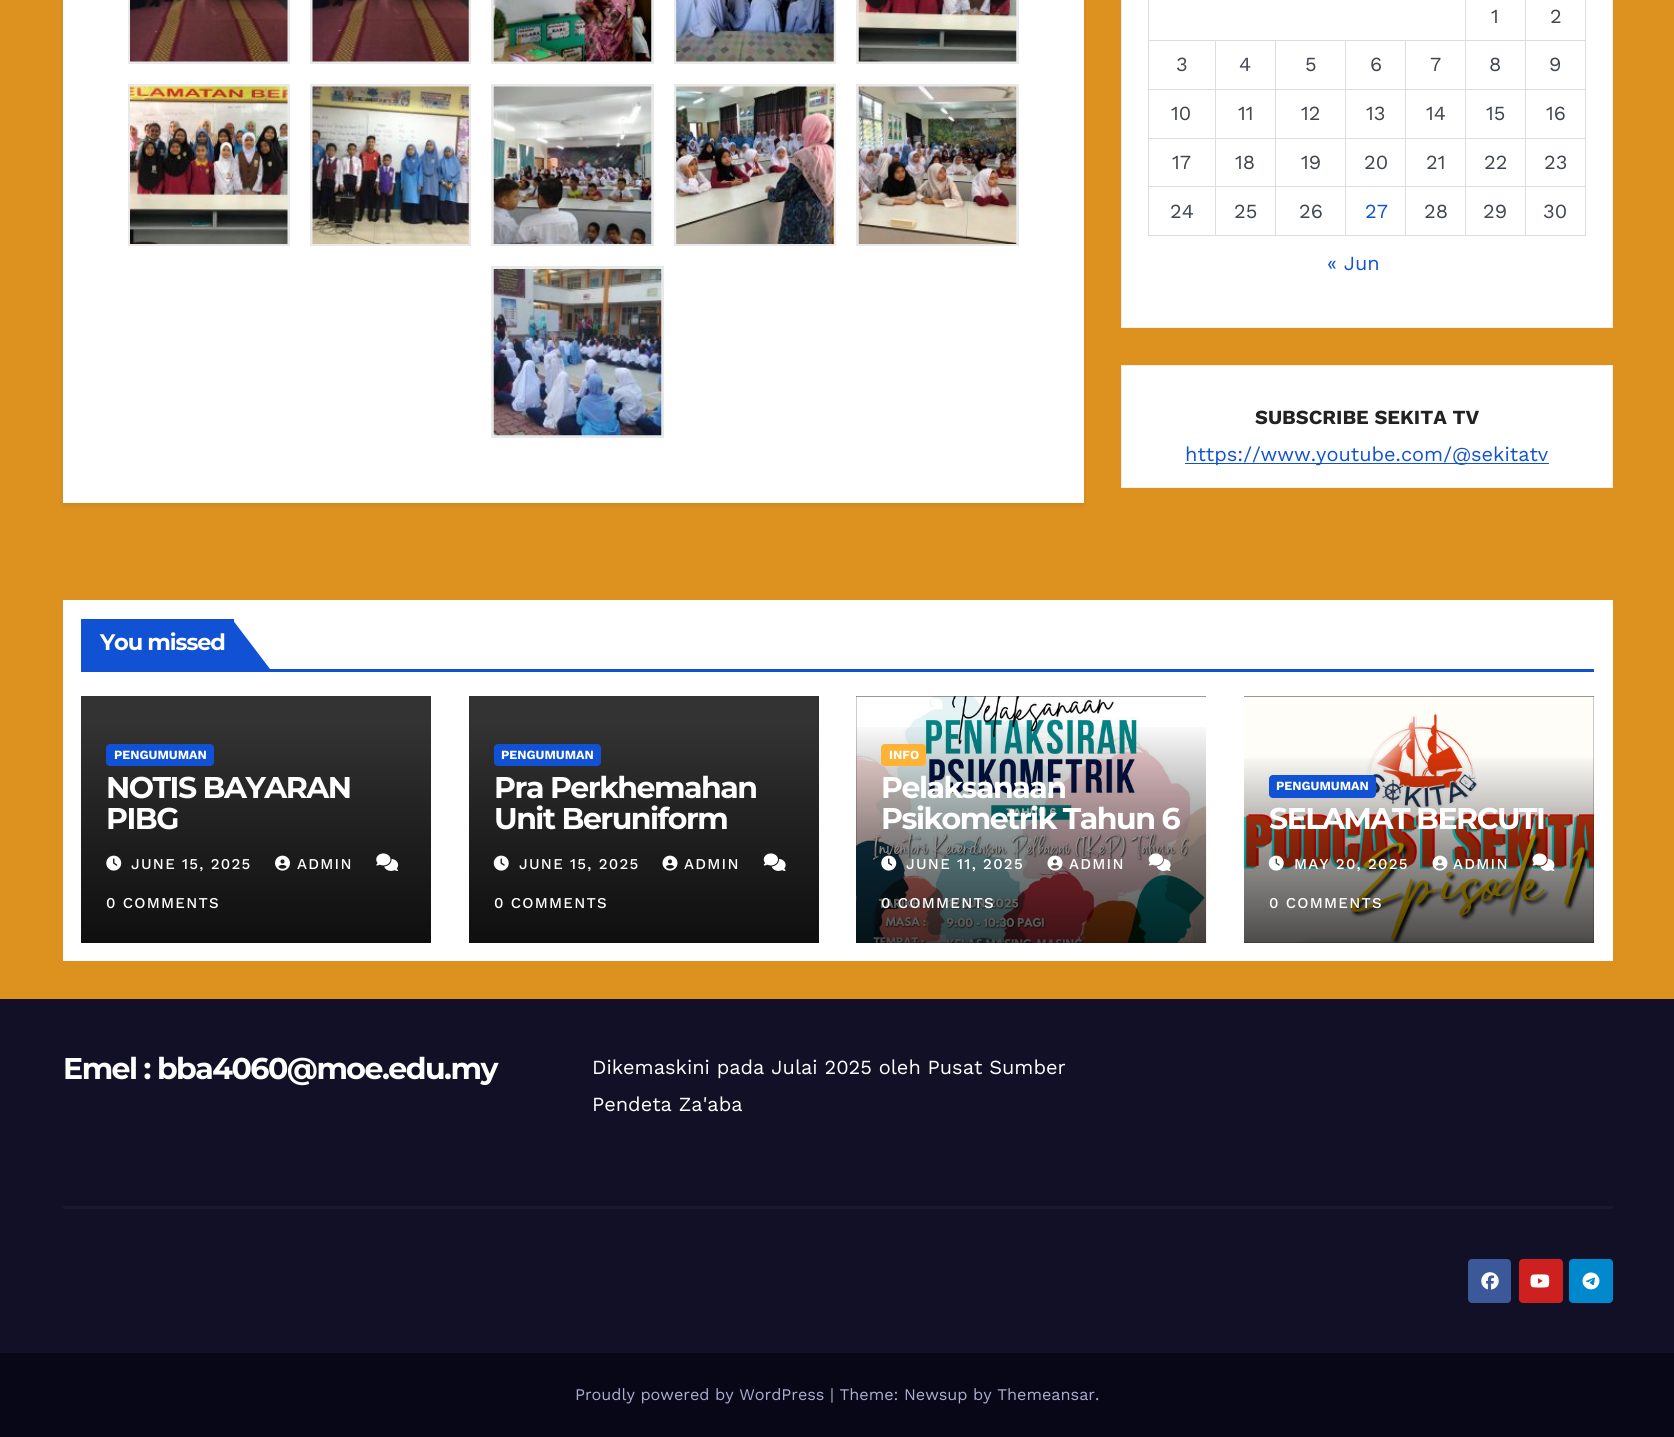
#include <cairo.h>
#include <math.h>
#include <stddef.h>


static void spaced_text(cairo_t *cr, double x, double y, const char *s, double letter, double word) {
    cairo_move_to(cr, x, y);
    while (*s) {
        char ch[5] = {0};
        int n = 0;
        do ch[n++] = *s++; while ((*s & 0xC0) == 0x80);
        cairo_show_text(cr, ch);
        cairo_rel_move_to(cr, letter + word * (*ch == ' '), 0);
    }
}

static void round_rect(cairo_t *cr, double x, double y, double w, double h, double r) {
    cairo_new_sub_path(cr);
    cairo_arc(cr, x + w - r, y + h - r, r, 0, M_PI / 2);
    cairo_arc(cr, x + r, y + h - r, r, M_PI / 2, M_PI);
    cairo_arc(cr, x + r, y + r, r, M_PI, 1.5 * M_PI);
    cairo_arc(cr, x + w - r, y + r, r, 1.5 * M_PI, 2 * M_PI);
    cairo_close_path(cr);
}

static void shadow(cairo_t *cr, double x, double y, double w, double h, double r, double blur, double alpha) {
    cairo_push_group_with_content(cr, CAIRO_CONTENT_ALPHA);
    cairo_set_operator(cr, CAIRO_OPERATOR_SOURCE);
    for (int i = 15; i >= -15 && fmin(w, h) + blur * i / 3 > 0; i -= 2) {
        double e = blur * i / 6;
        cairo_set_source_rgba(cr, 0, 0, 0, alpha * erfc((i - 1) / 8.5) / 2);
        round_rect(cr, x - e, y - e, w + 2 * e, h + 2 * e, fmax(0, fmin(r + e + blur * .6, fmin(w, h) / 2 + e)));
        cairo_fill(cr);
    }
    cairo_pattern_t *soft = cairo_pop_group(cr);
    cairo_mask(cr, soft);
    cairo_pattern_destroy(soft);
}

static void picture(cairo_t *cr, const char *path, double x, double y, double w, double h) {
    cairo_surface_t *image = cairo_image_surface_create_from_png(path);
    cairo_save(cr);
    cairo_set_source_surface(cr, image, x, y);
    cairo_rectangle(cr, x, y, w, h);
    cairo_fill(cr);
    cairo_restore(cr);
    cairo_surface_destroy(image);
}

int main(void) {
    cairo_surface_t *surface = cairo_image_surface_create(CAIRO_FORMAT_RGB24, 1674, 1437);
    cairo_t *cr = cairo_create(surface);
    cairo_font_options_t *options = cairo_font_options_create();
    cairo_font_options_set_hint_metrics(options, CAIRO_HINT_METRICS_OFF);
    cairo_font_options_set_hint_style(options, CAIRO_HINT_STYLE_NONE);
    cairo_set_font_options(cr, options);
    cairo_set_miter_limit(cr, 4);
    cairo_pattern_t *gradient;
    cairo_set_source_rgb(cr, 0.867, 0.569, 0.122);
    cairo_paint(cr);
    cairo_set_source_rgb(cr, 0, 0, 0);
    shadow(cr, 63, -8, 1021, 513, 0, 2.5, 0.08);
    cairo_set_source_rgb(cr, 1, 1, 1);
    cairo_rectangle(cr, 63, 0, 1021, 503);
    cairo_fill(cr);
    cairo_rectangle(cr, 129.5, -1.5, 159, 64);
    cairo_set_source_rgb(cr, 0.914, 0.914, 0.914);
    cairo_set_line_width(cr, 3);
    cairo_stroke(cr);
    picture(cr, "img1.png", 130, 0, 158, 62);
    cairo_rectangle(cr, 311.5, -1.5, 158, 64);
    cairo_stroke(cr);
    picture(cr, "img2.png", 312, 0, 157, 62);
    cairo_rectangle(cr, 492.5, -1.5, 160, 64);
    cairo_stroke(cr);
    picture(cr, "img3.png", 493, 0, 159, 62);
    cairo_rectangle(cr, 675.5, -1.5, 159, 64);
    cairo_stroke(cr);
    picture(cr, "img4.png", 676, 0, 158, 62);
    cairo_rectangle(cr, 857.5, -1.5, 160, 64);
    cairo_stroke(cr);
    picture(cr, "img5.png", 858, 0, 159, 62);
    cairo_rectangle(cr, 129.5, 85.5, 159, 159);
    cairo_stroke(cr);
    picture(cr, "img6.png", 130, 86, 158, 158);
    cairo_rectangle(cr, 311.5, 85.5, 158, 159);
    cairo_stroke(cr);
    picture(cr, "img7.png", 312, 86, 157, 158);
    cairo_rectangle(cr, 492.5, 85.5, 160, 159);
    cairo_stroke(cr);
    picture(cr, "img8.png", 493, 86, 159, 158);
    cairo_rectangle(cr, 675.5, 85.5, 159, 159);
    cairo_stroke(cr);
    picture(cr, "img9.png", 676, 86, 158, 158);
    cairo_rectangle(cr, 857.5, 85.5, 160, 159);
    cairo_stroke(cr);
    picture(cr, "img10.png", 858, 86, 159, 158);
    cairo_rectangle(cr, 492.5, 267.5, 170, 169);
    cairo_stroke(cr);
    picture(cr, "img11.png", 493, 269, 169, 167);
    cairo_set_source_rgb(cr, 1, 1, 1);
    cairo_rectangle(cr, 1121.5, -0.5, 491, 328);
    cairo_fill_preserve(cr);
    cairo_set_source_rgb(cr, 0.933, 0.933, 0.933);
    cairo_set_line_width(cr, 1);
    cairo_stroke(cr);
    cairo_set_source_rgb(cr, 0.867, 0.867, 0.867);
    cairo_rectangle(cr, 1525, 40, 61, 1);
    cairo_fill(cr);
    cairo_rectangle(cr, 1525, 89, 61, 1);
    cairo_fill(cr);
    cairo_rectangle(cr, 1525, 138, 61, 1);
    cairo_fill(cr);
    cairo_rectangle(cr, 1525, 186, 61, 1);
    cairo_fill(cr);
    cairo_rectangle(cr, 1585, 186, 1, 50);
    cairo_fill(cr);
    cairo_rectangle(cr, 1525, 235, 61, 1);
    cairo_fill(cr);
    cairo_rectangle(cr, 1525, 186, 1, 50);
    cairo_fill(cr);
    cairo_rectangle(cr, 1465, 186, 61, 1);
    cairo_fill(cr);
    cairo_rectangle(cr, 1525, 138, 1, 50);
    cairo_fill(cr);
    cairo_rectangle(cr, 1465, 138, 61, 1);
    cairo_fill(cr);
    cairo_rectangle(cr, 1525, 89, 1, 50);
    cairo_fill(cr);
    cairo_rectangle(cr, 1465, 89, 61, 1);
    cairo_fill(cr);
    cairo_rectangle(cr, 1525, 40, 1, 50);
    cairo_fill(cr);
    cairo_rectangle(cr, 1465, 40, 61, 1);
    cairo_fill(cr);
    cairo_rectangle(cr, 1465, 235, 61, 1);
    cairo_fill(cr);
    cairo_rectangle(cr, 1465, 186, 1, 50);
    cairo_fill(cr);
    cairo_rectangle(cr, 1405, 186, 61, 1);
    cairo_fill(cr);
    cairo_rectangle(cr, 1465, 138, 1, 50);
    cairo_fill(cr);
    cairo_rectangle(cr, 1405, 138, 61, 1);
    cairo_fill(cr);
    cairo_rectangle(cr, 1465, 89, 1, 50);
    cairo_fill(cr);
    cairo_rectangle(cr, 1405, 89, 61, 1);
    cairo_fill(cr);
    cairo_rectangle(cr, 1465, 40, 1, 50);
    cairo_fill(cr);
    cairo_rectangle(cr, 1405, 40, 61, 1);
    cairo_fill(cr);
    cairo_rectangle(cr, 1465, 0, 1, 41);
    cairo_fill(cr);
    cairo_select_font_face(cr, "Work Sans", CAIRO_FONT_SLANT_NORMAL, CAIRO_FONT_WEIGHT_NORMAL);
    cairo_set_font_size(cr, 20);
    cairo_set_source_rgb(cr, 0.251, 0.275, 0.302);
    cairo_move_to(cr, 1491, 23);
    cairo_show_text(cr, "1");
    cairo_set_source_rgb(cr, 0.867, 0.867, 0.867);
    cairo_rectangle(cr, 1525, 0, 1, 41);
    cairo_fill(cr);
    cairo_set_source_rgb(cr, 0.251, 0.275, 0.302);
    cairo_move_to(cr, 1550, 23);
    cairo_show_text(cr, "2");
    cairo_set_source_rgb(cr, 0.867, 0.867, 0.867);
    cairo_rectangle(cr, 1405, 235, 61, 1);
    cairo_fill(cr);
    cairo_rectangle(cr, 1405, 186, 1, 50);
    cairo_fill(cr);
    cairo_rectangle(cr, 1345, 186, 61, 1);
    cairo_fill(cr);
    cairo_rectangle(cr, 1405, 138, 1, 50);
    cairo_fill(cr);
    cairo_rectangle(cr, 1345, 138, 61, 1);
    cairo_fill(cr);
    cairo_rectangle(cr, 1405, 89, 1, 50);
    cairo_fill(cr);
    cairo_rectangle(cr, 1345, 89, 61, 1);
    cairo_fill(cr);
    cairo_rectangle(cr, 1405, 40, 1, 50);
    cairo_fill(cr);
    cairo_rectangle(cr, 1345, 40, 61, 1);
    cairo_fill(cr);
    cairo_rectangle(cr, 1345, 235, 61, 1);
    cairo_fill(cr);
    cairo_rectangle(cr, 1345, 186, 1, 50);
    cairo_fill(cr);
    cairo_rectangle(cr, 1275, 186, 71, 1);
    cairo_fill(cr);
    cairo_rectangle(cr, 1345, 138, 1, 50);
    cairo_fill(cr);
    cairo_rectangle(cr, 1275, 138, 71, 1);
    cairo_fill(cr);
    cairo_rectangle(cr, 1345, 89, 1, 50);
    cairo_fill(cr);
    cairo_rectangle(cr, 1275, 89, 71, 1);
    cairo_fill(cr);
    cairo_rectangle(cr, 1345, 40, 1, 50);
    cairo_fill(cr);
    cairo_rectangle(cr, 1275, 40, 71, 1);
    cairo_fill(cr);
    cairo_rectangle(cr, 1275, 235, 71, 1);
    cairo_fill(cr);
    cairo_rectangle(cr, 1275, 186, 1, 50);
    cairo_fill(cr);
    cairo_rectangle(cr, 1215, 186, 61, 1);
    cairo_fill(cr);
    cairo_rectangle(cr, 1275, 138, 1, 50);
    cairo_fill(cr);
    cairo_rectangle(cr, 1215, 138, 61, 1);
    cairo_fill(cr);
    cairo_rectangle(cr, 1275, 89, 1, 50);
    cairo_fill(cr);
    cairo_rectangle(cr, 1215, 89, 61, 1);
    cairo_fill(cr);
    cairo_rectangle(cr, 1275, 40, 1, 50);
    cairo_fill(cr);
    cairo_rectangle(cr, 1215, 40, 61, 1);
    cairo_fill(cr);
    cairo_rectangle(cr, 1215, 235, 61, 1);
    cairo_fill(cr);
    cairo_rectangle(cr, 1215, 186, 1, 50);
    cairo_fill(cr);
    cairo_rectangle(cr, 1148, 186, 68, 1);
    cairo_fill(cr);
    cairo_rectangle(cr, 1215, 138, 1, 50);
    cairo_fill(cr);
    cairo_rectangle(cr, 1148, 138, 68, 1);
    cairo_fill(cr);
    cairo_rectangle(cr, 1215, 89, 1, 50);
    cairo_fill(cr);
    cairo_rectangle(cr, 1148, 89, 68, 1);
    cairo_fill(cr);
    cairo_rectangle(cr, 1215, 40, 1, 50);
    cairo_fill(cr);
    cairo_rectangle(cr, 1148, 40, 68, 1);
    cairo_fill(cr);
    cairo_rectangle(cr, 1148, 235, 68, 1);
    cairo_fill(cr);
    cairo_rectangle(cr, 1148, 186, 1, 50);
    cairo_fill(cr);
    cairo_rectangle(cr, 1148, 138, 1, 50);
    cairo_fill(cr);
    cairo_rectangle(cr, 1148, 89, 1, 50);
    cairo_fill(cr);
    cairo_rectangle(cr, 1148, 0, 1, 90);
    cairo_fill(cr);
    cairo_set_source_rgb(cr, 0.251, 0.275, 0.302);
    cairo_move_to(cr, 1176, 71);
    cairo_show_text(cr, "3");
    cairo_move_to(cr, 1239, 71);
    cairo_show_text(cr, "4");
    cairo_move_to(cr, 1305, 71);
    cairo_show_text(cr, "5");
    cairo_move_to(cr, 1370, 71);
    cairo_show_text(cr, "6");
    cairo_move_to(cr, 1430, 71);
    cairo_show_text(cr, "7");
    cairo_move_to(cr, 1489, 71);
    cairo_show_text(cr, "8");
    cairo_set_source_rgb(cr, 0.867, 0.867, 0.867);
    cairo_rectangle(cr, 1585, 138, 1, 50);
    cairo_fill(cr);
    cairo_rectangle(cr, 1585, 89, 1, 50);
    cairo_fill(cr);
    cairo_rectangle(cr, 1585, 0, 1, 90);
    cairo_fill(cr);
    cairo_set_source_rgb(cr, 0.251, 0.275, 0.302);
    cairo_move_to(cr, 1549, 71);
    cairo_show_text(cr, "9");
    cairo_move_to(cr, 1171, 120);
    cairo_show_text(cr, "10");
    cairo_move_to(cr, 1238, 120);
    cairo_show_text(cr, "11");
    cairo_move_to(cr, 1301, 120);
    cairo_show_text(cr, "12");
    cairo_move_to(cr, 1366, 120);
    cairo_show_text(cr, "13");
    cairo_move_to(cr, 1426, 120);
    cairo_show_text(cr, "14");
    cairo_move_to(cr, 1486, 120);
    cairo_show_text(cr, "15");
    cairo_move_to(cr, 1546, 120);
    cairo_show_text(cr, "16");
    cairo_move_to(cr, 1172, 169);
    cairo_show_text(cr, "17");
    cairo_move_to(cr, 1235, 169);
    cairo_show_text(cr, "18");
    cairo_move_to(cr, 1301, 169);
    cairo_show_text(cr, "19");
    cairo_move_to(cr, 1364, 169);
    cairo_show_text(cr, "20");
    cairo_move_to(cr, 1426, 169);
    cairo_show_text(cr, "21");
    cairo_move_to(cr, 1484, 169);
    cairo_show_text(cr, "22");
    cairo_move_to(cr, 1544, 169);
    cairo_show_text(cr, "23");
    cairo_move_to(cr, 1170, 218);
    cairo_show_text(cr, "24");
    cairo_move_to(cr, 1234, 218);
    cairo_show_text(cr, "25");
    cairo_move_to(cr, 1299, 218);
    cairo_show_text(cr, "26");
    cairo_set_source_rgb(cr, 0.067, 0.318, 0.827);
    cairo_move_to(cr, 1365, 218);
    cairo_show_text(cr, "27");
    cairo_set_source_rgb(cr, 0.251, 0.275, 0.302);
    cairo_move_to(cr, 1424, 218);
    cairo_show_text(cr, "28");
    cairo_move_to(cr, 1483, 218);
    cairo_show_text(cr, "29");
    cairo_move_to(cr, 1543, 218);
    cairo_show_text(cr, "30");
    cairo_set_source_rgb(cr, 0.067, 0.318, 0.827);
    cairo_move_to(cr, 1327, 270);
    cairo_show_text(cr, "« Jun");
    cairo_set_source_rgb(cr, 1, 1, 1);
    cairo_rectangle(cr, 1121.5, 365.5, 491, 122);
    cairo_fill_preserve(cr);
    cairo_set_source_rgb(cr, 0.933, 0.933, 0.933);
    cairo_stroke(cr);
    cairo_select_font_face(cr, "Work Sans", CAIRO_FONT_SLANT_NORMAL, CAIRO_FONT_WEIGHT_BOLD);
    cairo_set_source_rgb(cr, 0.133, 0.133, 0.133);
    cairo_move_to(cr, 1255, 424);
    cairo_show_text(cr, "SUBSCRIBE SEKITA TV");
    cairo_set_source_rgb(cr, 0.067, 0.318, 0.827);
    cairo_rectangle(cr, 1185, 463, 364, 1);
    cairo_fill(cr);
    cairo_select_font_face(cr, "Work Sans", CAIRO_FONT_SLANT_NORMAL, CAIRO_FONT_WEIGHT_NORMAL);
    cairo_move_to(cr, 1185, 461);
    cairo_show_text(cr, "https://www.youtube.com/@sekitatv");
    cairo_set_source_rgb(cr, 1, 1, 1);
    cairo_rectangle(cr, 63, 600, 1550, 361);
    cairo_fill(cr);
    cairo_set_source_rgb(cr, 0.067, 0.318, 0.827);
    cairo_rectangle(cr, 81, 669, 1513, 3);
    cairo_fill(cr);
    cairo_rectangle(cr, 81, 619, 153, 50);
    cairo_fill(cr);
    cairo_select_font_face(cr, "Montserrat", CAIRO_FONT_SLANT_NORMAL, CAIRO_FONT_WEIGHT_BOLD);
    cairo_set_font_size(cr, 22.5);
    cairo_set_source_rgb(cr, 1, 1, 1);
    spaced_text(cr, 100, 650, "You missed", -1.1, 0);
    cairo_set_source_rgb(cr, 0.067, 0.318, 0.827);
    cairo_new_path(cr);
    cairo_move_to(cr, 232, 669);
    cairo_line_to(cr, 232, 619);
    cairo_line_to(cr, 270, 669);
    cairo_close_path(cr);
    cairo_fill(cr);
    cairo_set_source_rgb(cr, 0.2, 0.2, 0.2);
    cairo_rectangle(cr, 81, 696, 350, 25);
    cairo_fill(cr);
    gradient = cairo_pattern_create_linear(256, 721, 256, 943);
    cairo_pattern_add_color_stop_rgba(gradient, 0, 0.2, 0.2, 0.2, 1);
    cairo_pattern_add_color_stop_rgba(gradient, 0.5, 0.122, 0.122, 0.122, 1);
    cairo_pattern_add_color_stop_rgba(gradient, 1, 0.059, 0.059, 0.059, 1);
    cairo_set_source(cr, gradient);
    cairo_pattern_destroy(gradient);
    cairo_rectangle(cr, 81, 721, 350, 222);
    cairo_fill(cr);
    cairo_set_source_rgb(cr, 0.067, 0.318, 0.827);
    round_rect(cr, 106, 744, 108, 22, 4);
    cairo_fill(cr);
    cairo_select_font_face(cr, "Work Sans", CAIRO_FONT_SLANT_NORMAL, CAIRO_FONT_WEIGHT_BOLD);
    cairo_set_font_size(cr, 12.5);
    cairo_set_source_rgb(cr, 1, 1, 1);
    cairo_move_to(cr, 114, 759);
    cairo_show_text(cr, "PENGUMUMAN");
    cairo_select_font_face(cr, "Montserrat", CAIRO_FONT_SLANT_NORMAL, CAIRO_FONT_WEIGHT_BOLD);
    cairo_set_font_size(cr, 30);
    spaced_text(cr, 106, 798, "NOTIS BAYARAN", -1.5, 0);
    spaced_text(cr, 106, 829, "PIBG", -1.5, 0);
    picture(cr, "img12.png", 106, 855, 16, 16);
    cairo_select_font_face(cr, "Work Sans Medium", CAIRO_FONT_SLANT_NORMAL, CAIRO_FONT_WEIGHT_NORMAL);
    cairo_set_font_size(cr, 15);
    spaced_text(cr, 131, 869, "JUNE 15, 2025", 1.25, 0);
    picture(cr, "img13.png", 275, 855, 15, 16);
    spaced_text(cr, 297, 869, "ADMIN", 1.25, 0);
    picture(cr, "img14.png", 376, 853, 23, 18);
    spaced_text(cr, 106, 908, "0 COMMENTS", 1.25, 0);
    cairo_set_source_rgb(cr, 0.2, 0.2, 0.2);
    cairo_rectangle(cr, 469, 696, 350, 25);
    cairo_fill(cr);
    gradient = cairo_pattern_create_linear(644, 721, 644, 943);
    cairo_pattern_add_color_stop_rgba(gradient, 0, 0.2, 0.2, 0.2, 1);
    cairo_pattern_add_color_stop_rgba(gradient, 0.5, 0.122, 0.122, 0.122, 1);
    cairo_pattern_add_color_stop_rgba(gradient, 1, 0.059, 0.059, 0.059, 1);
    cairo_set_source(cr, gradient);
    cairo_pattern_destroy(gradient);
    cairo_rectangle(cr, 469, 721, 350, 222);
    cairo_fill(cr);
    cairo_set_source_rgb(cr, 0.067, 0.318, 0.827);
    round_rect(cr, 494, 744, 107, 22, 4);
    cairo_fill(cr);
    cairo_select_font_face(cr, "Work Sans", CAIRO_FONT_SLANT_NORMAL, CAIRO_FONT_WEIGHT_BOLD);
    cairo_set_font_size(cr, 12.5);
    cairo_set_source_rgb(cr, 1, 1, 1);
    cairo_move_to(cr, 501, 759);
    cairo_show_text(cr, "PENGUMUMAN");
    cairo_select_font_face(cr, "Montserrat", CAIRO_FONT_SLANT_NORMAL, CAIRO_FONT_WEIGHT_BOLD);
    cairo_set_font_size(cr, 30);
    spaced_text(cr, 494, 798, "Pra Perkhemahan", -1.5, 0);
    spaced_text(cr, 494, 829, "Unit Beruniform", -1.5, 0);
    picture(cr, "img15.png", 493, 855, 16, 16);
    cairo_select_font_face(cr, "Work Sans Medium", CAIRO_FONT_SLANT_NORMAL, CAIRO_FONT_WEIGHT_NORMAL);
    cairo_set_font_size(cr, 15);
    spaced_text(cr, 519, 869, "JUNE 15, 2025", 1.25, 0);
    picture(cr, "img16.png", 662, 855, 16, 16);
    spaced_text(cr, 684, 869, "ADMIN", 1.25, 0);
    picture(cr, "img17.png", 763, 853, 23, 18);
    spaced_text(cr, 494, 908, "0 COMMENTS", 1.25, 0);
    cairo_set_source_rgb(cr, 0.2, 0.2, 0.2);
    cairo_rectangle(cr, 856, 696, 350, 247);
    cairo_fill(cr);
    picture(cr, "img18.png", 856, 696, 351, 247);
    gradient = cairo_pattern_create_linear(1031, 721, 1031, 943);
    cairo_pattern_add_color_stop_rgba(gradient, 0, 0, 0, 0, 0);
    cairo_pattern_add_color_stop_rgba(gradient, 0.5, 0, 0, 0, 0.4);
    cairo_pattern_add_color_stop_rgba(gradient, 1, 0, 0, 0, 0.7);
    cairo_set_source(cr, gradient);
    cairo_pattern_destroy(gradient);
    cairo_rectangle(cr, 856, 727, 350, 216);
    cairo_fill(cr);
    cairo_set_source_rgb(cr, 0.996, 0.698, 0.212);
    round_rect(cr, 881, 744, 45, 22, 4);
    cairo_fill(cr);
    cairo_select_font_face(cr, "Work Sans", CAIRO_FONT_SLANT_NORMAL, CAIRO_FONT_WEIGHT_BOLD);
    cairo_set_font_size(cr, 12.5);
    cairo_set_source_rgb(cr, 1, 1, 1);
    cairo_move_to(cr, 889, 759);
    cairo_show_text(cr, "INFO");
    cairo_select_font_face(cr, "Montserrat", CAIRO_FONT_SLANT_NORMAL, CAIRO_FONT_WEIGHT_BOLD);
    cairo_set_font_size(cr, 30);
    spaced_text(cr, 881, 798, "Pelaksanaan", -1.5, 0);
    spaced_text(cr, 881, 829, "Psikometrik Tahun 6", -1.5, 0);
    picture(cr, "img19.png", 881, 855, 16, 16);
    cairo_select_font_face(cr, "Work Sans Medium", CAIRO_FONT_SLANT_NORMAL, CAIRO_FONT_WEIGHT_NORMAL);
    cairo_set_font_size(cr, 15);
    spaced_text(cr, 906, 869, "JUNE 11, 2025", 1.25, 0);
    picture(cr, "img20.png", 1047, 855, 16, 16);
    spaced_text(cr, 1069, 869, "ADMIN", 1.25, 0);
    picture(cr, "img21.png", 1148, 853, 23, 18);
    spaced_text(cr, 881, 908, "0 COMMENTS", 1.25, 0);
    cairo_set_source_rgb(cr, 0.2, 0.2, 0.2);
    cairo_rectangle(cr, 1244, 696, 350, 247);
    cairo_fill(cr);
    picture(cr, "img22.png", 1243, 696, 351, 247);
    gradient = cairo_pattern_create_linear(1419, 753, 1419, 943);
    cairo_pattern_add_color_stop_rgba(gradient, 0, 0, 0, 0, 0);
    cairo_pattern_add_color_stop_rgba(gradient, 0.5, 0, 0, 0, 0.4);
    cairo_pattern_add_color_stop_rgba(gradient, 1, 0, 0, 0, 0.7);
    cairo_set_source(cr, gradient);
    cairo_pattern_destroy(gradient);
    cairo_rectangle(cr, 1244, 758, 350, 185);
    cairo_fill(cr);
    cairo_set_source_rgb(cr, 0.067, 0.318, 0.827);
    round_rect(cr, 1269, 775, 107, 23, 4);
    cairo_fill(cr);
    cairo_select_font_face(cr, "Work Sans", CAIRO_FONT_SLANT_NORMAL, CAIRO_FONT_WEIGHT_BOLD);
    cairo_set_font_size(cr, 12.5);
    cairo_set_source_rgb(cr, 1, 1, 1);
    cairo_move_to(cr, 1276, 790);
    cairo_show_text(cr, "PENGUMUMAN");
    cairo_select_font_face(cr, "Montserrat", CAIRO_FONT_SLANT_NORMAL, CAIRO_FONT_WEIGHT_BOLD);
    cairo_set_font_size(cr, 30);
    spaced_text(cr, 1269, 829, "SELAMAT BERCUTI", -1.5, 0);
    picture(cr, "img23.png", 1268, 855, 16, 16);
    cairo_select_font_face(cr, "Work Sans Medium", CAIRO_FONT_SLANT_NORMAL, CAIRO_FONT_WEIGHT_NORMAL);
    cairo_set_font_size(cr, 15);
    spaced_text(cr, 1294, 869, "MAY 20, 2025", 1.25, 0);
    picture(cr, "img24.png", 1432, 855, 16, 16);
    spaced_text(cr, 1453, 869, "ADMIN", 1.25, 0);
    picture(cr, "img25.png", 1532, 853, 23, 18);
    spaced_text(cr, 1269, 908, "0 COMMENTS", 1.25, 0);
    cairo_set_source_rgb(cr, 0.071, 0.063, 0.149);
    cairo_rectangle(cr, 0, 999, 1674, 354);
    cairo_fill(cr);
    cairo_select_font_face(cr, "Montserrat", CAIRO_FONT_SLANT_NORMAL, CAIRO_FONT_WEIGHT_BOLD);
    cairo_set_font_size(cr, 30);
    cairo_set_source_rgb(cr, 1, 1, 1);
    spaced_text(cr, 63, 1079, "Emel : bba4060@moe.edu.my", -1.5, 0);
    cairo_select_font_face(cr, "Work Sans", CAIRO_FONT_SLANT_NORMAL, CAIRO_FONT_WEIGHT_NORMAL);
    cairo_set_font_size(cr, 20);
    cairo_move_to(cr, 592, 1074);
    cairo_show_text(cr, "Dikemaskini pada Julai 2025 oleh Pusat Sumber");
    cairo_move_to(cr, 592, 1111);
    cairo_show_text(cr, "Pendeta Za'aba");
    cairo_set_source_rgb(cr, 0.102, 0.094, 0.18);
    cairo_rectangle(cr, 63, 1206, 1550, 3);
    cairo_fill(cr);
    cairo_set_source_rgb(cr, 0.231, 0.349, 0.596);
    round_rect(cr, 1468, 1259, 43, 44, 4);
    cairo_fill(cr);
    picture(cr, "img26.png", 1481, 1272, 18, 18);
    cairo_set_source_rgb(cr, 0.804, 0.125, 0.122);
    round_rect(cr, 1519, 1259, 44, 44, 4);
    cairo_fill(cr);
    picture(cr, "img27.png", 1530, 1274, 20, 14);
    cairo_set_source_rgb(cr, 0, 0.533, 0.8);
    round_rect(cr, 1569, 1259, 44, 44, 4);
    cairo_fill(cr);
    picture(cr, "img28.png", 1582, 1272, 18, 18);
    cairo_set_source_rgb(cr, 0.035, 0.031, 0.094);
    cairo_rectangle(cr, 0, 1353, 1674, 84);
    cairo_fill(cr);
    cairo_set_font_size(cr, 16.25);
    cairo_set_source_rgb(cr, 0.667, 0.682, 0.82);
    cairo_move_to(cr, 575, 1400);
    cairo_show_text(cr, "Proudly powered by WordPress | Theme: Newsup by Themeansar.");
    cairo_surface_write_to_png(surface, "page.png");
    cairo_font_options_destroy(options);
    cairo_destroy(cr);
    cairo_surface_destroy(surface);
    return 0;
}
